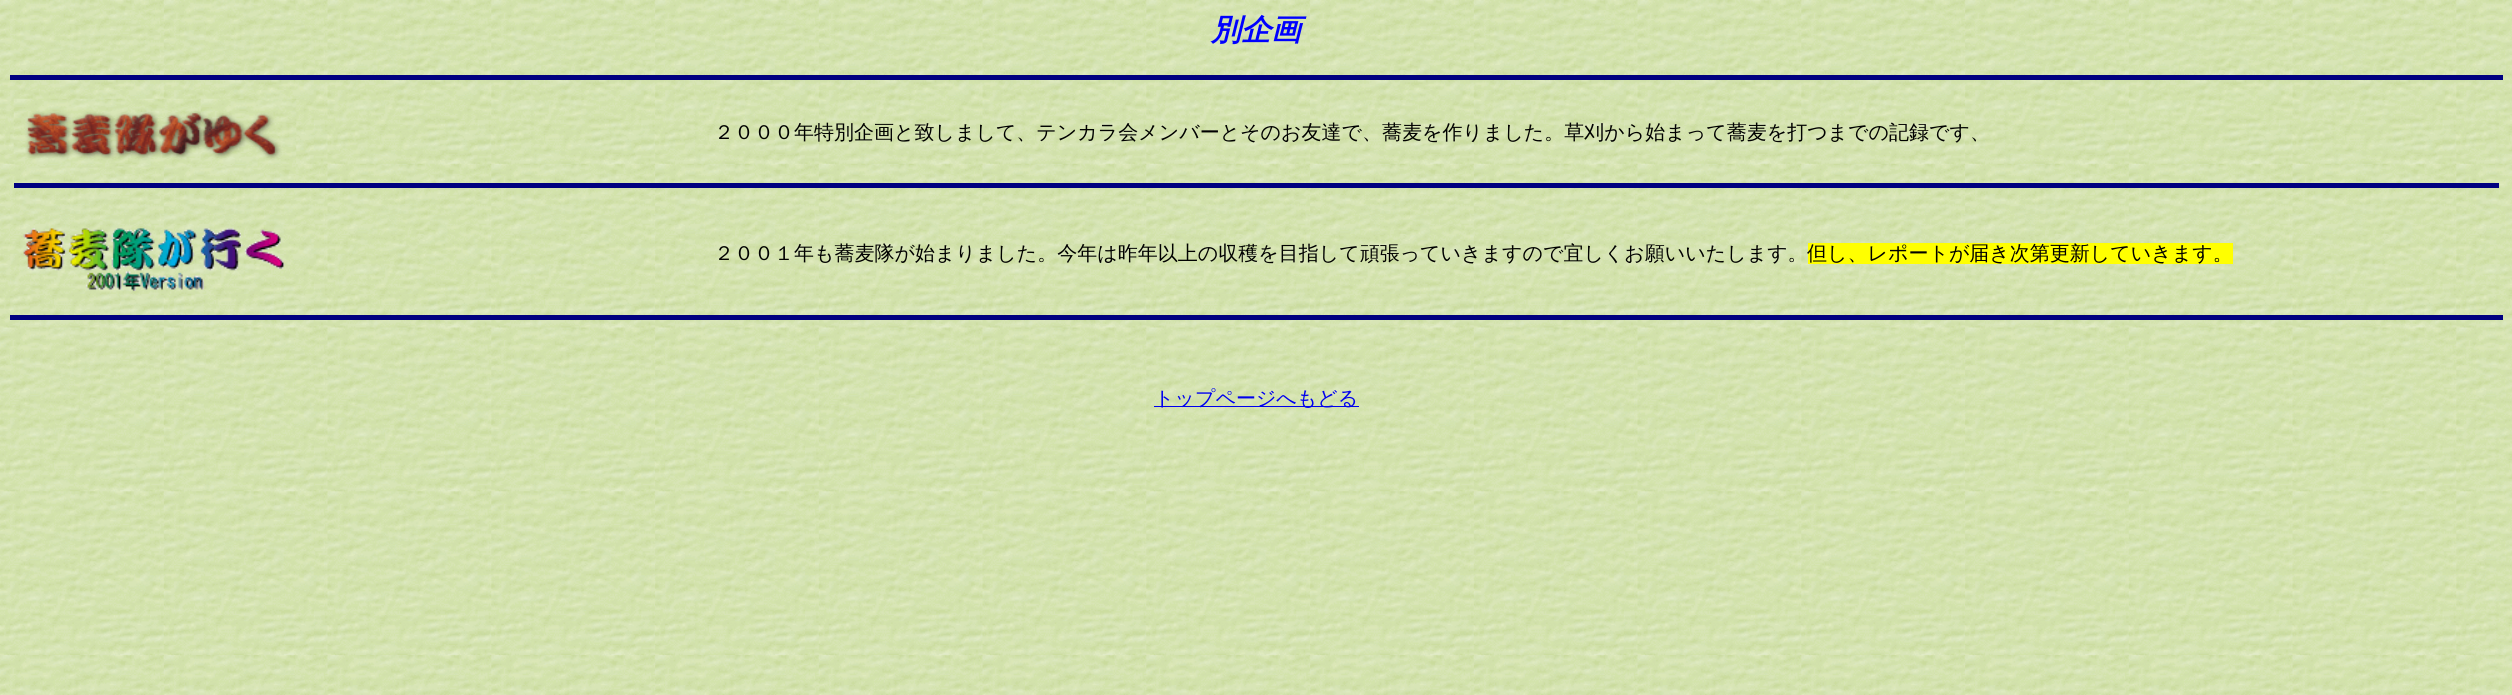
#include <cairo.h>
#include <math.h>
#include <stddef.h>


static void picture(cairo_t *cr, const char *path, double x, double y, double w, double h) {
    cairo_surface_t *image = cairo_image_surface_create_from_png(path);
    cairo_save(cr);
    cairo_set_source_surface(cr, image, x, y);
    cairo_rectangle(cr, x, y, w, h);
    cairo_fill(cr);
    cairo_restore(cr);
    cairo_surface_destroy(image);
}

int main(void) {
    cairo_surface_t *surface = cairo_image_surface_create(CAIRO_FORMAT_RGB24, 2512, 695);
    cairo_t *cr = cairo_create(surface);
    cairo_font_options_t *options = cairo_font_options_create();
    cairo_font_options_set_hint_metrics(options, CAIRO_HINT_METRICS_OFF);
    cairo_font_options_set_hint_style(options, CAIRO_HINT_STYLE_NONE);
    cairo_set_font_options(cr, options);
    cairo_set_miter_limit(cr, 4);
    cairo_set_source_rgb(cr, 1, 1, 1);
    cairo_paint(cr);
    picture(cr, "img1.png", 0, 0, 2512, 695);
    cairo_select_font_face(cr, "WenQuanYi Zen Hei", CAIRO_FONT_SLANT_ITALIC, CAIRO_FONT_WEIGHT_BOLD);
    cairo_set_font_size(cr, 30);
    cairo_set_source_rgb(cr, 0, 0, 1);
    cairo_move_to(cr, 1211, 40);
    cairo_show_text(cr, "別企画");
    cairo_set_source_rgb(cr, 0, 0, 0.502);
    cairo_rectangle(cr, 10, 75, 2493, 5);
    cairo_fill(cr);
    picture(cr, "img2.png", 13, 98, 284, 70);
    cairo_select_font_face(cr, "WenQuanYi Zen Hei Medium", CAIRO_FONT_SLANT_NORMAL, CAIRO_FONT_WEIGHT_NORMAL);
    cairo_set_font_size(cr, 20);
    cairo_set_source_rgb(cr, 0, 0, 0);
    cairo_move_to(cr, 714, 139);
    cairo_show_text(cr, "２０００年特別企画と致しまして、テンカラ会メンバーとそのお友達で、蕎麦を作りました。草刈から始まって蕎麦を打つまでの記録です、");
    cairo_set_source_rgb(cr, 0, 0, 0.502);
    cairo_rectangle(cr, 14, 183, 2485, 5);
    cairo_fill(cr);
    picture(cr, "img3.png", 23, 228, 262, 64);
    cairo_set_source_rgb(cr, 0, 0, 0);
    cairo_move_to(cr, 714, 260);
    cairo_show_text(cr, "２００１年も蕎麦隊が始まりました。今年は昨年以上の収穫を目指して頑張っていきますので宜しくお願いいたします。");
    cairo_set_source_rgb(cr, 1, 1, 0);
    cairo_rectangle(cr, 1808, 243, 425, 21);
    cairo_fill(cr);
    cairo_set_source_rgb(cr, 0, 0, 0);
    cairo_move_to(cr, 1807, 260);
    cairo_show_text(cr, "但し、レポートが届き次第更新していきます。");
    cairo_set_source_rgb(cr, 0, 0, 0.502);
    cairo_rectangle(cr, 10, 315, 2493, 5);
    cairo_fill(cr);
    cairo_set_source_rgb(cr, 0, 0, 0.933);
    cairo_rectangle(cr, 1154, 406, 205, 1);
    cairo_fill(cr);
    cairo_move_to(cr, 1154, 405);
    cairo_show_text(cr, "トップページへもどる");
    cairo_surface_write_to_png(surface, "page.png");
    cairo_font_options_destroy(options);
    cairo_destroy(cr);
    cairo_surface_destroy(surface);
    return 0;
}
